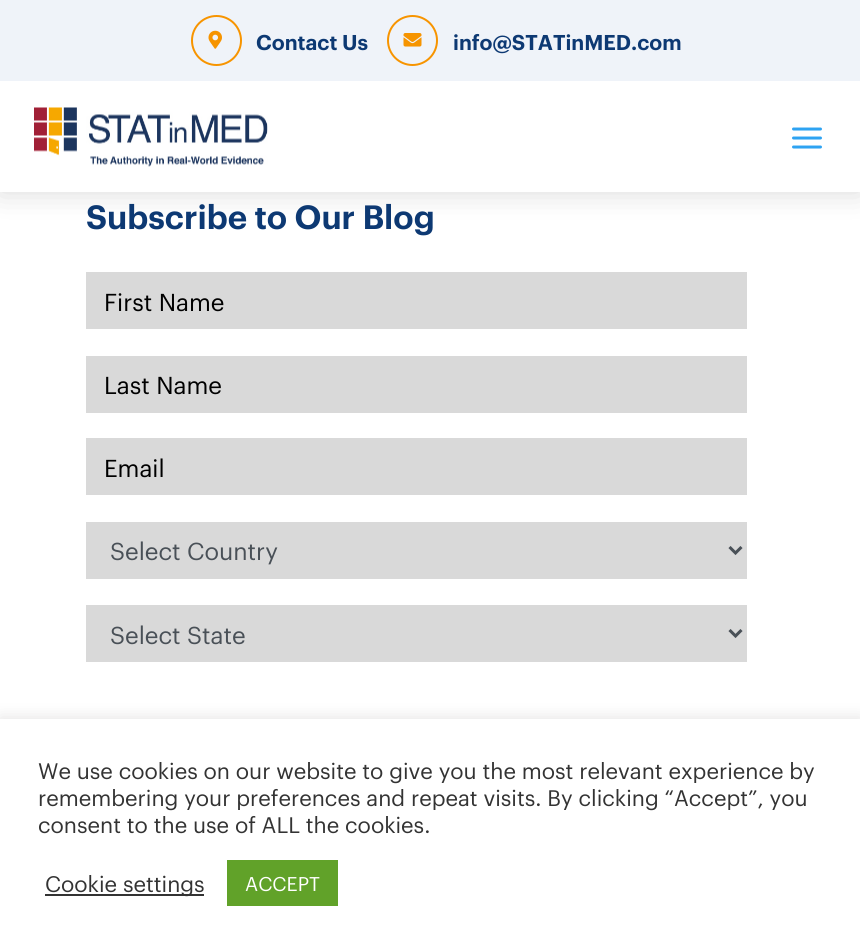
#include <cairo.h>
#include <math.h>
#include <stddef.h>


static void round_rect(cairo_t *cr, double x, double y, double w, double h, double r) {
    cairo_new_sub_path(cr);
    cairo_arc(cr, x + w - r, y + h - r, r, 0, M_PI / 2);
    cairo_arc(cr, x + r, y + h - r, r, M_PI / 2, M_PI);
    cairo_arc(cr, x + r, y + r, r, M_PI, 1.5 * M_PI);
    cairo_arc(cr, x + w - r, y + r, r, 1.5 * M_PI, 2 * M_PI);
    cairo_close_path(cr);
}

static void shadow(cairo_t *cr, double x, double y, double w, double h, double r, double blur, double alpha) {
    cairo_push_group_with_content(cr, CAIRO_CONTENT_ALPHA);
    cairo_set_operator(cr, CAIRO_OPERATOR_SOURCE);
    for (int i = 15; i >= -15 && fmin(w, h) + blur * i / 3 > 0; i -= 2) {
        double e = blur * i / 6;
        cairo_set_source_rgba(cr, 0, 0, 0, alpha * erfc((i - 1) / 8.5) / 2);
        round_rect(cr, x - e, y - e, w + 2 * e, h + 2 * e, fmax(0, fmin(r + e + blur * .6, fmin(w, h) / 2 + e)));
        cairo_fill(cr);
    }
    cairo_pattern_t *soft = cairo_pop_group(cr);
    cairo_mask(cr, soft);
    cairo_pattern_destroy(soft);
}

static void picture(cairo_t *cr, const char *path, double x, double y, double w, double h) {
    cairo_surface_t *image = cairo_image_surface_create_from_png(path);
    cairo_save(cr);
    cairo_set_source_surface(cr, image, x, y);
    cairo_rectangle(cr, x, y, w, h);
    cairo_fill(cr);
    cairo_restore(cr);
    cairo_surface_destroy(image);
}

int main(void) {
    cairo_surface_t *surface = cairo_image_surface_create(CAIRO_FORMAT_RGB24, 860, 951);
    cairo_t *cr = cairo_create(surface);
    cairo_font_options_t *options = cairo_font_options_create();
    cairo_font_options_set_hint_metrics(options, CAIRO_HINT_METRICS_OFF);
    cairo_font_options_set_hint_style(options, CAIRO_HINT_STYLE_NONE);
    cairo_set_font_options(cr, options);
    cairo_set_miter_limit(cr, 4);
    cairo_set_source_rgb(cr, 1, 1, 1);
    cairo_paint(cr);
    cairo_set_source_rgb(cr, 0, 0, 0);
    shadow(cr, 0, 81, 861, 111, 0, 15, 0.15);
    cairo_set_source_rgb(cr, 0.937, 0.953, 0.976);
    cairo_rectangle(cr, 0, 0, 860, 81);
    cairo_fill(cr);
    cairo_arc(cr, 216.5, 40.5, 24.5, 0, 2 * M_PI);
    cairo_set_source_rgb(cr, 0.965, 0.58, 0);
    cairo_stroke(cr);
    picture(cr, "img1.png", 208, 30, 14, 19);
    cairo_select_font_face(cr, "Graphik SemiBold", CAIRO_FONT_SLANT_NORMAL, CAIRO_FONT_WEIGHT_NORMAL);
    cairo_set_font_size(cr, 21);
    cairo_set_source_rgb(cr, 0.051, 0.224, 0.451);
    cairo_move_to(cr, 256, 50);
    cairo_show_text(cr, "Contact Us");
    cairo_new_path(cr);
    cairo_arc(cr, 412.5, 40.5, 24.5, 0, 2 * M_PI);
    cairo_set_source_rgb(cr, 0.965, 0.58, 0);
    cairo_stroke(cr);
    picture(cr, "img2.png", 403, 33, 19, 14);
    cairo_set_source_rgb(cr, 0.051, 0.224, 0.451);
    cairo_move_to(cr, 453, 50);
    cairo_show_text(cr, "info@STATinMED.com");
    cairo_set_source_rgb(cr, 1, 1, 1);
    cairo_rectangle(cr, 0, 81, 860, 111);
    cairo_fill(cr);
    picture(cr, "img3.png", 34, 107, 234, 60);
    picture(cr, "img4.png", 792, 127, 30, 22);
    cairo_set_font_size(cr, 33);
    cairo_set_source_rgb(cr, 0.051, 0.224, 0.451);
    cairo_move_to(cr, 86, 229);
    cairo_show_text(cr, "Subscribe to Our Blog");
    cairo_set_source_rgb(cr, 0.851, 0.851, 0.851);
    cairo_rectangle(cr, 86, 272, 661, 57);
    cairo_fill(cr);
    cairo_select_font_face(cr, "Graphik", CAIRO_FONT_SLANT_NORMAL, CAIRO_FONT_WEIGHT_NORMAL);
    cairo_set_font_size(cr, 24);
    cairo_set_source_rgb(cr, 0, 0, 0);
    cairo_move_to(cr, 104, 311);
    cairo_show_text(cr, "First Name");
    cairo_set_source_rgb(cr, 0.851, 0.851, 0.851);
    cairo_rectangle(cr, 86, 356, 661, 57);
    cairo_fill(cr);
    cairo_set_source_rgb(cr, 0, 0, 0);
    cairo_move_to(cr, 104, 394);
    cairo_show_text(cr, "Last Name");
    cairo_set_source_rgb(cr, 0.851, 0.851, 0.851);
    cairo_rectangle(cr, 86, 438, 661, 57);
    cairo_fill(cr);
    cairo_set_source_rgb(cr, 0, 0, 0);
    cairo_move_to(cr, 104, 477);
    cairo_show_text(cr, "Email");
    cairo_set_source_rgb(cr, 0.851, 0.851, 0.851);
    cairo_rectangle(cr, 86, 522, 661, 57);
    cairo_fill(cr);
    cairo_new_path(cr);
    cairo_move_to(cr, 729.5, 547);
    cairo_line_to(cr, 735.5, 553);
    cairo_line_to(cr, 741.5, 547);
    cairo_set_source_rgb(cr, 0.286, 0.314, 0.341);
    cairo_set_line_width(cr, 3);
    cairo_stroke(cr);
    cairo_move_to(cr, 110, 560);
    cairo_show_text(cr, "Select Country");
    cairo_set_source_rgb(cr, 0.851, 0.851, 0.851);
    cairo_rectangle(cr, 86, 605, 661, 57);
    cairo_fill(cr);
    cairo_new_path(cr);
    cairo_move_to(cr, 729.5, 630);
    cairo_line_to(cr, 735.5, 636);
    cairo_line_to(cr, 741.5, 630);
    cairo_set_source_rgb(cr, 0.286, 0.314, 0.341);
    cairo_stroke(cr);
    cairo_move_to(cr, 110, 644);
    cairo_show_text(cr, "Select State");
    cairo_set_source_rgb(cr, 0.675, 0.671, 0.671);
    shadow(cr, 0, 717, 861, 233, 0, 7.5, 0.3);
    cairo_set_source_rgb(cr, 1, 1, 1);
    cairo_rectangle(cr, 0, 719, 860, 232);
    cairo_fill(cr);
    cairo_set_font_size(cr, 22);
    cairo_set_source_rgb(cr, 0.2, 0.2, 0.2);
    cairo_move_to(cr, 38, 779);
    cairo_show_text(cr, "We use cookies on our website to give you the most relevant experience by");
    cairo_move_to(cr, 38, 806);
    cairo_show_text(cr, "remembering your preferences and repeat visits. By clicking “Accept”, you");
    cairo_move_to(cr, 38, 833);
    cairo_show_text(cr, "consent to the use of ALL the cookies.");
    cairo_rectangle(cr, 45, 894, 159, 2);
    cairo_fill(cr);
    cairo_move_to(cr, 45, 892);
    cairo_show_text(cr, "Cookie settings");
    cairo_set_source_rgb(cr, 0.38, 0.635, 0.161);
    cairo_rectangle(cr, 227, 860, 111, 46);
    cairo_fill(cr);
    cairo_set_font_size(cr, 19.5);
    cairo_set_source_rgb(cr, 1, 1, 1);
    cairo_move_to(cr, 245, 891);
    cairo_show_text(cr, "ACCEPT");
    cairo_surface_write_to_png(surface, "page.png");
    cairo_font_options_destroy(options);
    cairo_destroy(cr);
    cairo_surface_destroy(surface);
    return 0;
}
